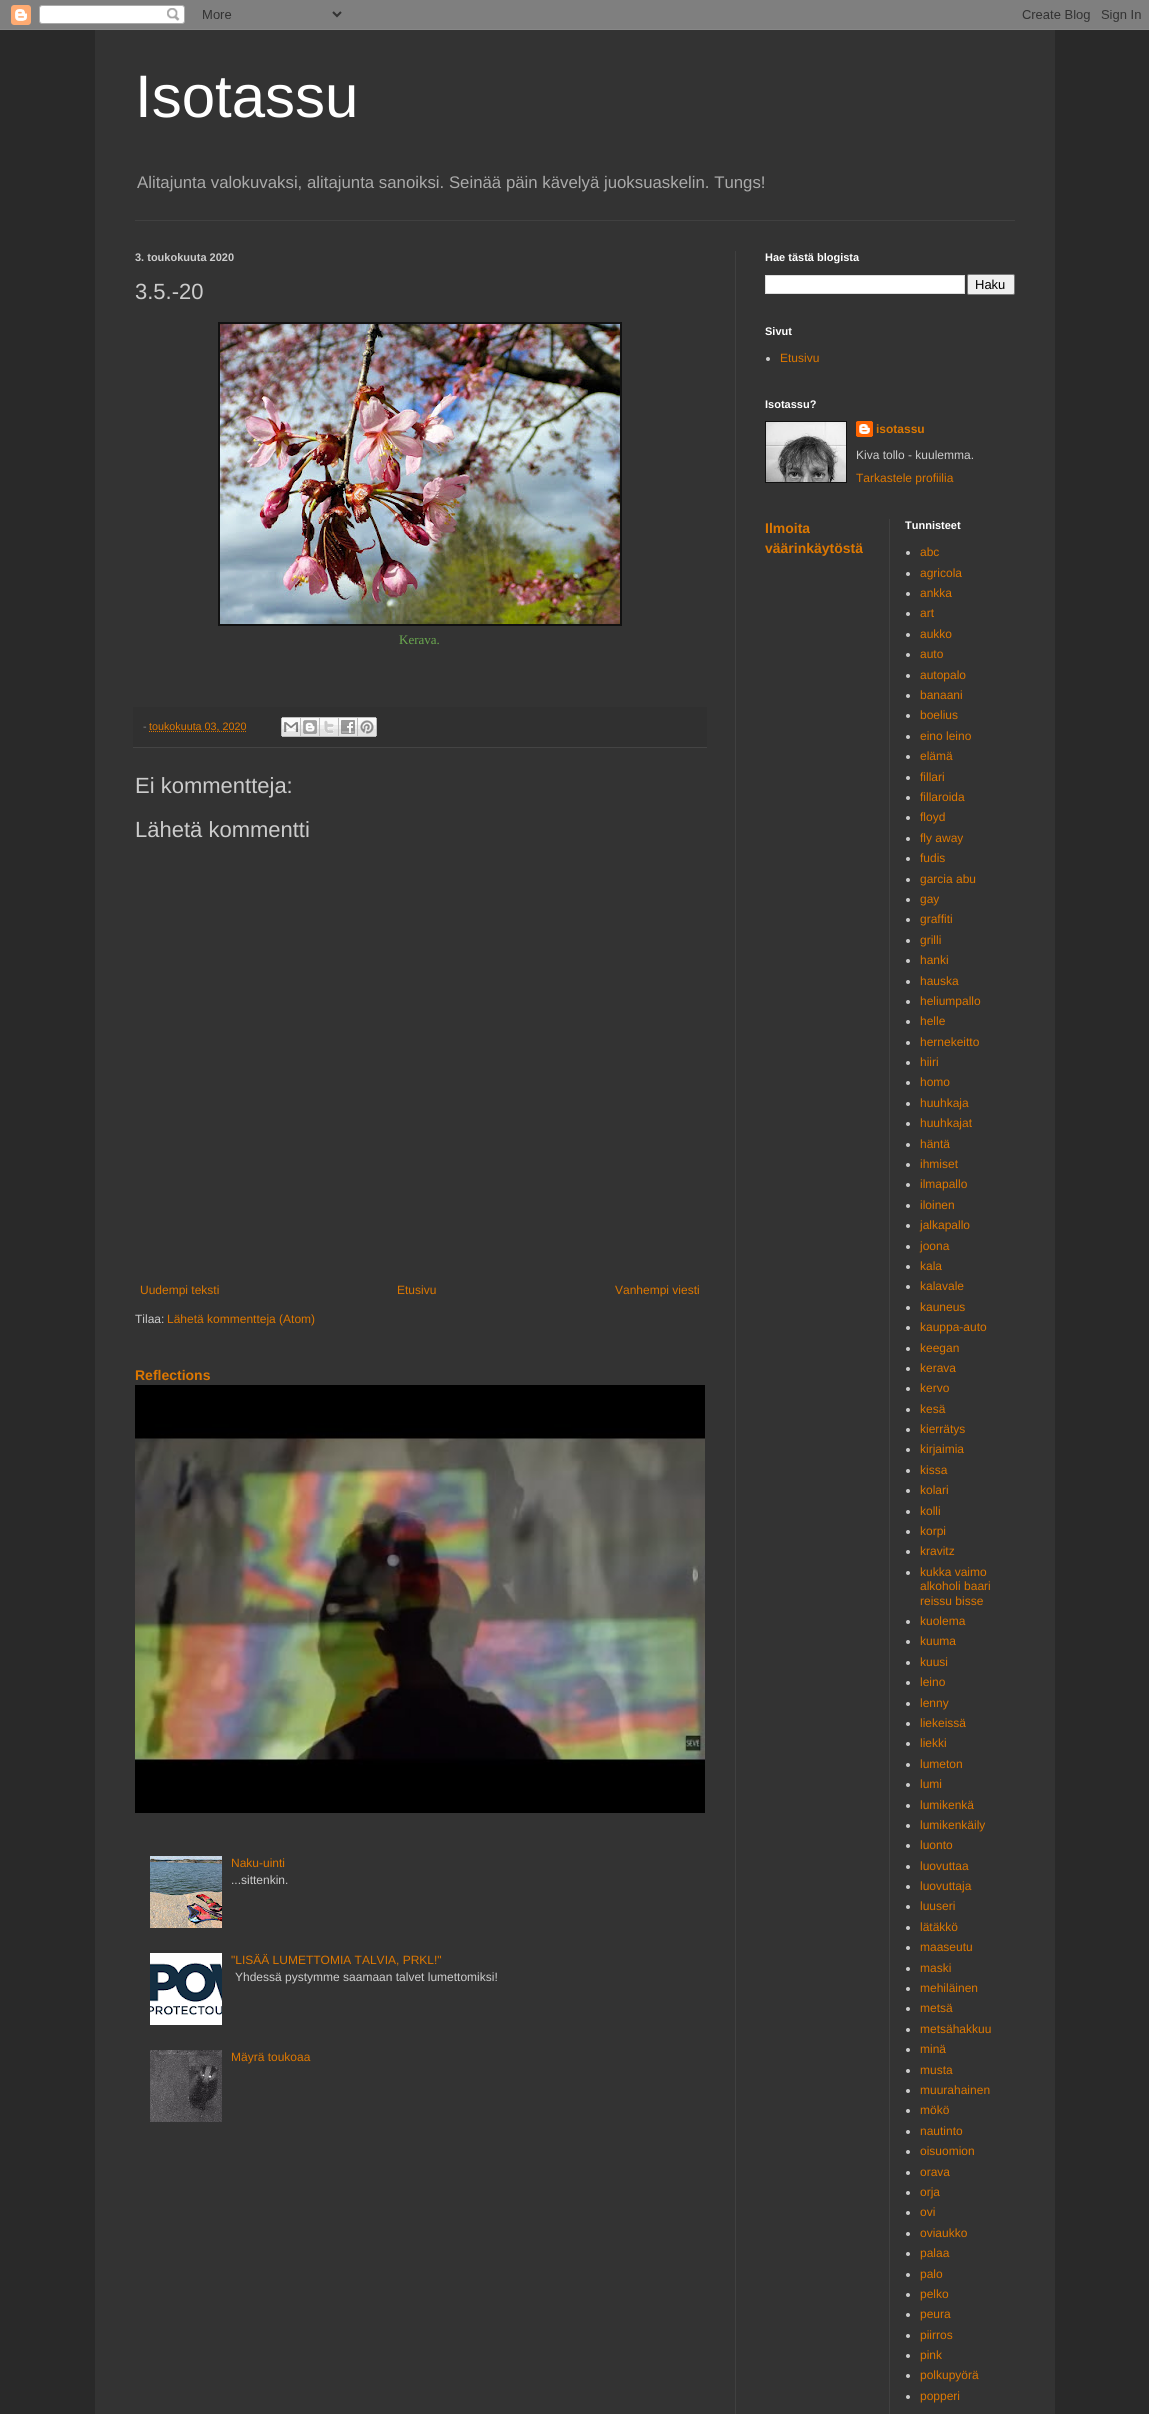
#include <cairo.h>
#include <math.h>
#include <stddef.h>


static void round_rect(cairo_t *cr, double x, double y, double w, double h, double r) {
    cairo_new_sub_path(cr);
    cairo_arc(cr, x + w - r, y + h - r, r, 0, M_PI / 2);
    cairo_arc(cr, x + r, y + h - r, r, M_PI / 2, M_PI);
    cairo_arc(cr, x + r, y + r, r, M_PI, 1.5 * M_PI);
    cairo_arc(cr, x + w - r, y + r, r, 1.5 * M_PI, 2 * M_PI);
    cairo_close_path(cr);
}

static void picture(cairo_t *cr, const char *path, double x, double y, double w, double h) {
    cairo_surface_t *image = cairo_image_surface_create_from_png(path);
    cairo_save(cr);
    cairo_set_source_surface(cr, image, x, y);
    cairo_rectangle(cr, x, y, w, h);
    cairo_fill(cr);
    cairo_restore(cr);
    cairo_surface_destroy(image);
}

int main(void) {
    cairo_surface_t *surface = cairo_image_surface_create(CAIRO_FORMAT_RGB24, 1149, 2414);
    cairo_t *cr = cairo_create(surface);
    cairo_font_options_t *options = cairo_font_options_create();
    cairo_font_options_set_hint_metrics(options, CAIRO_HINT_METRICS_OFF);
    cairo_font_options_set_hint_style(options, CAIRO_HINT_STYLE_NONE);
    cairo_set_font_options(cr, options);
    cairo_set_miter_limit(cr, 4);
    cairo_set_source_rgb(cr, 0.161, 0.161, 0.161);
    cairo_paint(cr);
    picture(cr, "img1.png", 0, 0, 1149, 30);
    cairo_set_source_rgb(cr, 0.2, 0.2, 0.2);
    cairo_rectangle(cr, 95, 30, 960, 2384);
    cairo_fill(cr);
    cairo_select_font_face(cr, "Liberation Sans", CAIRO_FONT_SLANT_NORMAL, CAIRO_FONT_WEIGHT_NORMAL);
    cairo_set_font_size(cr, 60);
    cairo_set_source_rgb(cr, 1, 1, 1);
    cairo_move_to(cr, 135, 117);
    cairo_show_text(cr, "Isotassu");
    cairo_set_font_size(cr, 16.8);
    cairo_set_source_rgb(cr, 0.667, 0.667, 0.667);
    cairo_move_to(cr, 137, 188);
    cairo_show_text(cr, "Alitajunta valokuvaksi, alitajunta sanoiksi. Seinää päin kävelyä juoksuaskelin. Tungs!");
    cairo_set_source_rgb(cr, 0.251, 0.251, 0.251);
    cairo_rectangle(cr, 135, 220, 880, 1);
    cairo_fill(cr);
    cairo_rectangle(cr, 735, 251, 1, 2163);
    cairo_fill(cr);
    cairo_select_font_face(cr, "Liberation Sans", CAIRO_FONT_SLANT_NORMAL, CAIRO_FONT_WEIGHT_BOLD);
    cairo_set_font_size(cr, 11);
    cairo_set_source_rgb(cr, 0.8, 0.8, 0.8);
    cairo_move_to(cr, 135, 261);
    cairo_show_text(cr, "3. toukokuuta 2020");
    cairo_select_font_face(cr, "Liberation Sans", CAIRO_FONT_SLANT_NORMAL, CAIRO_FONT_WEIGHT_NORMAL);
    cairo_set_font_size(cr, 22);
    cairo_move_to(cr, 135, 299);
    cairo_show_text(cr, "3.5.-20");
    cairo_set_source_rgb(cr, 0.067, 0.067, 0.067);
    cairo_rectangle(cr, 218, 322, 404, 304);
    cairo_fill(cr);
    picture(cr, "img2.png", 220, 324, 400, 300);
    cairo_select_font_face(cr, "Liberation Serif", CAIRO_FONT_SLANT_NORMAL, CAIRO_FONT_WEIGHT_NORMAL);
    cairo_set_font_size(cr, 13);
    cairo_set_source_rgb(cr, 0.416, 0.659, 0.31);
    cairo_move_to(cr, 399, 644);
    cairo_show_text(cr, "Kerava.");
    cairo_set_source_rgb(cr, 0.188, 0.188, 0.188);
    cairo_rectangle(cr, 133, 707, 574, 40);
    cairo_fill(cr);
    cairo_set_source_rgb(cr, 0.267, 0.267, 0.267);
    cairo_rectangle(cr, 133, 747, 574, 1);
    cairo_fill(cr);
    cairo_select_font_face(cr, "Liberation Sans", CAIRO_FONT_SLANT_NORMAL, CAIRO_FONT_WEIGHT_NORMAL);
    cairo_set_font_size(cr, 10.75);
    cairo_set_source_rgb(cr, 0.533, 0.533, 0.533);
    cairo_move_to(cr, 143, 730);
    cairo_show_text(cr, "-");
    cairo_new_path(cr);
    cairo_move_to(cr, 149, 731.5);
    cairo_line_to(cr, 247, 731.5);
    cairo_set_source_rgb(cr, 0.867, 0.467, 0);
    cairo_set_line_width(cr, 1);
    cairo_set_dash(cr, (double[]){1, 1}, 2, 0);
    cairo_stroke(cr);
    cairo_move_to(cr, 149, 730);
    cairo_show_text(cr, "toukokuuta 03, 2020");
    picture(cr, "img3.png", 281, 717, 20, 20);
    picture(cr, "img4.png", 301, 717, 19, 20);
    picture(cr, "img5.png", 320, 717, 19, 20);
    picture(cr, "img6.png", 339, 717, 19, 20);
    picture(cr, "img7.png", 358, 717, 19, 20);
    cairo_set_font_size(cr, 22);
    cairo_set_source_rgb(cr, 0.8, 0.8, 0.8);
    cairo_move_to(cr, 135, 793);
    cairo_show_text(cr, "Ei kommentteja:");
    cairo_move_to(cr, 135, 837);
    cairo_show_text(cr, "Lähetä kommentti");
    cairo_set_font_size(cr, 12);
    cairo_set_source_rgb(cr, 0.867, 0.467, 0);
    cairo_move_to(cr, 140, 1294);
    cairo_show_text(cr, "Uudempi teksti");
    cairo_move_to(cr, 397, 1294);
    cairo_show_text(cr, "Etusivu");
    cairo_move_to(cr, 615, 1294);
    cairo_show_text(cr, "Vanhempi viesti");
    cairo_set_source_rgb(cr, 0.8, 0.8, 0.8);
    cairo_move_to(cr, 135, 1323);
    cairo_show_text(cr, "Tilaa:");
    cairo_set_source_rgb(cr, 0.867, 0.467, 0);
    cairo_move_to(cr, 167, 1323);
    cairo_show_text(cr, "Lähetä kommentteja (Atom)");
    cairo_select_font_face(cr, "Liberation Sans", CAIRO_FONT_SLANT_NORMAL, CAIRO_FONT_WEIGHT_BOLD);
    cairo_set_font_size(cr, 14);
    cairo_move_to(cr, 135, 1380);
    cairo_show_text(cr, "Reflections");
    picture(cr, "img8.png", 135, 1385, 570, 428);
    picture(cr, "img9.png", 150, 1856, 72, 72);
    cairo_select_font_face(cr, "Liberation Sans", CAIRO_FONT_SLANT_NORMAL, CAIRO_FONT_WEIGHT_NORMAL);
    cairo_set_font_size(cr, 12);
    cairo_move_to(cr, 231, 1867);
    cairo_show_text(cr, "Naku-uinti");
    cairo_set_source_rgb(cr, 0.8, 0.8, 0.8);
    cairo_move_to(cr, 231, 1884);
    cairo_show_text(cr, "...sittenkin.");
    picture(cr, "img10.png", 150, 1953, 72, 72);
    cairo_set_source_rgb(cr, 0.867, 0.467, 0);
    cairo_move_to(cr, 231, 1964);
    cairo_show_text(cr, "\"LISÄÄ LUMETTOMIA TALVIA, PRKL!\"");
    cairo_set_source_rgb(cr, 0.8, 0.8, 0.8);
    cairo_move_to(cr, 235, 1981);
    cairo_show_text(cr, "Yhdessä pystymme saamaan talvet lumettomiksi!");
    picture(cr, "img11.png", 150, 2050, 72, 72);
    cairo_set_source_rgb(cr, 0.867, 0.467, 0);
    cairo_move_to(cr, 231, 2061);
    cairo_show_text(cr, "Mäyrä toukoaa");
    cairo_select_font_face(cr, "Liberation Sans", CAIRO_FONT_SLANT_NORMAL, CAIRO_FONT_WEIGHT_BOLD);
    cairo_set_font_size(cr, 11);
    cairo_set_source_rgb(cr, 1, 1, 1);
    cairo_move_to(cr, 765, 261);
    cairo_show_text(cr, "Hae tästä blogista");
    cairo_rectangle(cr, 765.5, 275.5, 199, 18);
    cairo_fill_preserve(cr);
    cairo_set_source_rgb(cr, 0.867, 0.867, 0.867);
    cairo_set_dash(cr, NULL, 0, 0);
    cairo_stroke(cr);
    cairo_set_source_rgb(cr, 0.937, 0.937, 0.937);
    round_rect(cr, 967.5, 274.5, 47, 20, 1.5);
    cairo_fill_preserve(cr);
    cairo_set_source_rgb(cr, 0.463, 0.463, 0.463);
    cairo_stroke(cr);
    cairo_select_font_face(cr, "Liberation Sans", CAIRO_FONT_SLANT_NORMAL, CAIRO_FONT_WEIGHT_NORMAL);
    cairo_set_font_size(cr, 13);
    cairo_set_source_rgb(cr, 0, 0, 0);
    cairo_move_to(cr, 975, 289);
    cairo_show_text(cr, "Haku");
    cairo_select_font_face(cr, "Liberation Sans", CAIRO_FONT_SLANT_NORMAL, CAIRO_FONT_WEIGHT_BOLD);
    cairo_set_font_size(cr, 11);
    cairo_set_source_rgb(cr, 1, 1, 1);
    cairo_move_to(cr, 765, 335);
    cairo_show_text(cr, "Sivut");
    cairo_set_source_rgb(cr, 0.8, 0.8, 0.8);
    cairo_new_path(cr);
    cairo_arc(cr, 768, 359, 2, 0, 2 * M_PI);
    cairo_fill(cr);
    cairo_select_font_face(cr, "Liberation Sans", CAIRO_FONT_SLANT_NORMAL, CAIRO_FONT_WEIGHT_NORMAL);
    cairo_set_font_size(cr, 12);
    cairo_set_source_rgb(cr, 0.867, 0.467, 0);
    cairo_move_to(cr, 780, 362);
    cairo_show_text(cr, "Etusivu");
    cairo_select_font_face(cr, "Liberation Sans", CAIRO_FONT_SLANT_NORMAL, CAIRO_FONT_WEIGHT_BOLD);
    cairo_set_font_size(cr, 11);
    cairo_set_source_rgb(cr, 1, 1, 1);
    cairo_move_to(cr, 765, 408);
    cairo_show_text(cr, "Isotassu?");
    cairo_set_source_rgb(cr, 0.067, 0.067, 0.067);
    cairo_rectangle(cr, 765, 421, 82, 62);
    cairo_fill(cr);
    picture(cr, "img12.png", 766, 422, 80, 60);
    picture(cr, "img13.png", 856, 421, 17, 16);
    cairo_set_font_size(cr, 12);
    cairo_set_source_rgb(cr, 0.867, 0.467, 0);
    cairo_move_to(cr, 876, 433);
    cairo_show_text(cr, "isotassu");
    cairo_select_font_face(cr, "Liberation Sans", CAIRO_FONT_SLANT_NORMAL, CAIRO_FONT_WEIGHT_NORMAL);
    cairo_set_source_rgb(cr, 0.8, 0.8, 0.8);
    cairo_move_to(cr, 856, 459);
    cairo_show_text(cr, "Kiva tollo - kuulemma.");
    cairo_set_source_rgb(cr, 0.867, 0.467, 0);
    cairo_move_to(cr, 856, 482);
    cairo_show_text(cr, "Tarkastele profiilia");
    cairo_select_font_face(cr, "Liberation Sans", CAIRO_FONT_SLANT_NORMAL, CAIRO_FONT_WEIGHT_BOLD);
    cairo_set_font_size(cr, 14);
    cairo_move_to(cr, 765, 533);
    cairo_show_text(cr, "Ilmoita");
    cairo_move_to(cr, 765, 553);
    cairo_show_text(cr, "väärinkäytöstä");
    cairo_set_source_rgb(cr, 0.251, 0.251, 0.251);
    cairo_rectangle(cr, 889, 519, 1, 1895);
    cairo_fill(cr);
    cairo_set_font_size(cr, 11);
    cairo_set_source_rgb(cr, 1, 1, 1);
    cairo_move_to(cr, 905, 529);
    cairo_show_text(cr, "Tunnisteet");
    cairo_set_source_rgb(cr, 0.8, 0.8, 0.8);
    cairo_new_path(cr);
    cairo_arc(cr, 908, 553, 2, 0, 2 * M_PI);
    cairo_fill(cr);
    cairo_select_font_face(cr, "Liberation Sans", CAIRO_FONT_SLANT_NORMAL, CAIRO_FONT_WEIGHT_NORMAL);
    cairo_set_font_size(cr, 12);
    cairo_set_source_rgb(cr, 0.867, 0.467, 0);
    cairo_move_to(cr, 920, 556);
    cairo_show_text(cr, "abc");
    cairo_set_source_rgb(cr, 0.8, 0.8, 0.8);
    cairo_new_path(cr);
    cairo_arc(cr, 908, 574, 2, 0, 2 * M_PI);
    cairo_fill(cr);
    cairo_set_source_rgb(cr, 0.867, 0.467, 0);
    cairo_move_to(cr, 920, 577);
    cairo_show_text(cr, "agricola");
    cairo_set_source_rgb(cr, 0.8, 0.8, 0.8);
    cairo_new_path(cr);
    cairo_arc(cr, 908, 594, 2, 0, 2 * M_PI);
    cairo_fill(cr);
    cairo_set_source_rgb(cr, 0.867, 0.467, 0);
    cairo_move_to(cr, 920, 597);
    cairo_show_text(cr, "ankka");
    cairo_set_source_rgb(cr, 0.8, 0.8, 0.8);
    cairo_new_path(cr);
    cairo_arc(cr, 908, 614, 2, 0, 2 * M_PI);
    cairo_fill(cr);
    cairo_set_source_rgb(cr, 0.867, 0.467, 0);
    cairo_move_to(cr, 920, 617);
    cairo_show_text(cr, "art");
    cairo_set_source_rgb(cr, 0.8, 0.8, 0.8);
    cairo_new_path(cr);
    cairo_arc(cr, 908, 635, 2, 0, 2 * M_PI);
    cairo_fill(cr);
    cairo_set_source_rgb(cr, 0.867, 0.467, 0);
    cairo_move_to(cr, 920, 638);
    cairo_show_text(cr, "aukko");
    cairo_set_source_rgb(cr, 0.8, 0.8, 0.8);
    cairo_new_path(cr);
    cairo_arc(cr, 908, 655, 2, 0, 2 * M_PI);
    cairo_fill(cr);
    cairo_set_source_rgb(cr, 0.867, 0.467, 0);
    cairo_move_to(cr, 920, 658);
    cairo_show_text(cr, "auto");
    cairo_set_source_rgb(cr, 0.8, 0.8, 0.8);
    cairo_new_path(cr);
    cairo_arc(cr, 908, 676, 2, 0, 2 * M_PI);
    cairo_fill(cr);
    cairo_set_source_rgb(cr, 0.867, 0.467, 0);
    cairo_move_to(cr, 920, 679);
    cairo_show_text(cr, "autopalo");
    cairo_set_source_rgb(cr, 0.8, 0.8, 0.8);
    cairo_new_path(cr);
    cairo_arc(cr, 908, 696, 2, 0, 2 * M_PI);
    cairo_fill(cr);
    cairo_set_source_rgb(cr, 0.867, 0.467, 0);
    cairo_move_to(cr, 920, 699);
    cairo_show_text(cr, "banaani");
    cairo_set_source_rgb(cr, 0.8, 0.8, 0.8);
    cairo_new_path(cr);
    cairo_arc(cr, 908, 716, 2, 0, 2 * M_PI);
    cairo_fill(cr);
    cairo_set_source_rgb(cr, 0.867, 0.467, 0);
    cairo_move_to(cr, 920, 719);
    cairo_show_text(cr, "boelius");
    cairo_set_source_rgb(cr, 0.8, 0.8, 0.8);
    cairo_new_path(cr);
    cairo_arc(cr, 908, 737, 2, 0, 2 * M_PI);
    cairo_fill(cr);
    cairo_set_source_rgb(cr, 0.867, 0.467, 0);
    cairo_move_to(cr, 920, 740);
    cairo_show_text(cr, "eino leino");
    cairo_set_source_rgb(cr, 0.8, 0.8, 0.8);
    cairo_new_path(cr);
    cairo_arc(cr, 908, 757, 2, 0, 2 * M_PI);
    cairo_fill(cr);
    cairo_set_source_rgb(cr, 0.867, 0.467, 0);
    cairo_move_to(cr, 920, 760);
    cairo_show_text(cr, "elämä");
    cairo_set_source_rgb(cr, 0.8, 0.8, 0.8);
    cairo_new_path(cr);
    cairo_arc(cr, 908, 778, 2, 0, 2 * M_PI);
    cairo_fill(cr);
    cairo_set_source_rgb(cr, 0.867, 0.467, 0);
    cairo_move_to(cr, 920, 781);
    cairo_show_text(cr, "fillari");
    cairo_set_source_rgb(cr, 0.8, 0.8, 0.8);
    cairo_new_path(cr);
    cairo_arc(cr, 908, 798, 2, 0, 2 * M_PI);
    cairo_fill(cr);
    cairo_set_source_rgb(cr, 0.867, 0.467, 0);
    cairo_move_to(cr, 920, 801);
    cairo_show_text(cr, "fillaroida");
    cairo_set_source_rgb(cr, 0.8, 0.8, 0.8);
    cairo_new_path(cr);
    cairo_arc(cr, 908, 818, 2, 0, 2 * M_PI);
    cairo_fill(cr);
    cairo_set_source_rgb(cr, 0.867, 0.467, 0);
    cairo_move_to(cr, 920, 821);
    cairo_show_text(cr, "floyd");
    cairo_set_source_rgb(cr, 0.8, 0.8, 0.8);
    cairo_new_path(cr);
    cairo_arc(cr, 908, 839, 2, 0, 2 * M_PI);
    cairo_fill(cr);
    cairo_set_source_rgb(cr, 0.867, 0.467, 0);
    cairo_move_to(cr, 920, 842);
    cairo_show_text(cr, "fly away");
    cairo_set_source_rgb(cr, 0.8, 0.8, 0.8);
    cairo_new_path(cr);
    cairo_arc(cr, 908, 859, 2, 0, 2 * M_PI);
    cairo_fill(cr);
    cairo_set_source_rgb(cr, 0.867, 0.467, 0);
    cairo_move_to(cr, 920, 862);
    cairo_show_text(cr, "fudis");
    cairo_set_source_rgb(cr, 0.8, 0.8, 0.8);
    cairo_new_path(cr);
    cairo_arc(cr, 908, 880, 2, 0, 2 * M_PI);
    cairo_fill(cr);
    cairo_set_source_rgb(cr, 0.867, 0.467, 0);
    cairo_move_to(cr, 920, 883);
    cairo_show_text(cr, "garcia abu");
    cairo_set_source_rgb(cr, 0.8, 0.8, 0.8);
    cairo_new_path(cr);
    cairo_arc(cr, 908, 900, 2, 0, 2 * M_PI);
    cairo_fill(cr);
    cairo_set_source_rgb(cr, 0.867, 0.467, 0);
    cairo_move_to(cr, 920, 903);
    cairo_show_text(cr, "gay");
    cairo_set_source_rgb(cr, 0.8, 0.8, 0.8);
    cairo_new_path(cr);
    cairo_arc(cr, 908, 920, 2, 0, 2 * M_PI);
    cairo_fill(cr);
    cairo_set_source_rgb(cr, 0.867, 0.467, 0);
    cairo_move_to(cr, 920, 923);
    cairo_show_text(cr, "graffiti");
    cairo_set_source_rgb(cr, 0.8, 0.8, 0.8);
    cairo_new_path(cr);
    cairo_arc(cr, 908, 941, 2, 0, 2 * M_PI);
    cairo_fill(cr);
    cairo_set_source_rgb(cr, 0.867, 0.467, 0);
    cairo_move_to(cr, 920, 944);
    cairo_show_text(cr, "grilli");
    cairo_set_source_rgb(cr, 0.8, 0.8, 0.8);
    cairo_new_path(cr);
    cairo_arc(cr, 908, 961, 2, 0, 2 * M_PI);
    cairo_fill(cr);
    cairo_set_source_rgb(cr, 0.867, 0.467, 0);
    cairo_move_to(cr, 920, 964);
    cairo_show_text(cr, "hanki");
    cairo_set_source_rgb(cr, 0.8, 0.8, 0.8);
    cairo_new_path(cr);
    cairo_arc(cr, 908, 982, 2, 0, 2 * M_PI);
    cairo_fill(cr);
    cairo_set_source_rgb(cr, 0.867, 0.467, 0);
    cairo_move_to(cr, 920, 985);
    cairo_show_text(cr, "hauska");
    cairo_set_source_rgb(cr, 0.8, 0.8, 0.8);
    cairo_new_path(cr);
    cairo_arc(cr, 908, 1002, 2, 0, 2 * M_PI);
    cairo_fill(cr);
    cairo_set_source_rgb(cr, 0.867, 0.467, 0);
    cairo_move_to(cr, 920, 1005);
    cairo_show_text(cr, "heliumpallo");
    cairo_set_source_rgb(cr, 0.8, 0.8, 0.8);
    cairo_new_path(cr);
    cairo_arc(cr, 908, 1022, 2, 0, 2 * M_PI);
    cairo_fill(cr);
    cairo_set_source_rgb(cr, 0.867, 0.467, 0);
    cairo_move_to(cr, 920, 1025);
    cairo_show_text(cr, "helle");
    cairo_set_source_rgb(cr, 0.8, 0.8, 0.8);
    cairo_new_path(cr);
    cairo_arc(cr, 908, 1043, 2, 0, 2 * M_PI);
    cairo_fill(cr);
    cairo_set_source_rgb(cr, 0.867, 0.467, 0);
    cairo_move_to(cr, 920, 1046);
    cairo_show_text(cr, "hernekeitto");
    cairo_set_source_rgb(cr, 0.8, 0.8, 0.8);
    cairo_new_path(cr);
    cairo_arc(cr, 908, 1063, 2, 0, 2 * M_PI);
    cairo_fill(cr);
    cairo_set_source_rgb(cr, 0.867, 0.467, 0);
    cairo_move_to(cr, 920, 1066);
    cairo_show_text(cr, "hiiri");
    cairo_set_source_rgb(cr, 0.8, 0.8, 0.8);
    cairo_new_path(cr);
    cairo_arc(cr, 908, 1083, 2, 0, 2 * M_PI);
    cairo_fill(cr);
    cairo_set_source_rgb(cr, 0.867, 0.467, 0);
    cairo_move_to(cr, 920, 1086);
    cairo_show_text(cr, "homo");
    cairo_set_source_rgb(cr, 0.8, 0.8, 0.8);
    cairo_new_path(cr);
    cairo_arc(cr, 908, 1104, 2, 0, 2 * M_PI);
    cairo_fill(cr);
    cairo_set_source_rgb(cr, 0.867, 0.467, 0);
    cairo_move_to(cr, 920, 1107);
    cairo_show_text(cr, "huuhkaja");
    cairo_set_source_rgb(cr, 0.8, 0.8, 0.8);
    cairo_new_path(cr);
    cairo_arc(cr, 908, 1124, 2, 0, 2 * M_PI);
    cairo_fill(cr);
    cairo_set_source_rgb(cr, 0.867, 0.467, 0);
    cairo_move_to(cr, 920, 1127);
    cairo_show_text(cr, "huuhkajat");
    cairo_set_source_rgb(cr, 0.8, 0.8, 0.8);
    cairo_new_path(cr);
    cairo_arc(cr, 908, 1145, 2, 0, 2 * M_PI);
    cairo_fill(cr);
    cairo_set_source_rgb(cr, 0.867, 0.467, 0);
    cairo_move_to(cr, 920, 1148);
    cairo_show_text(cr, "häntä");
    cairo_set_source_rgb(cr, 0.8, 0.8, 0.8);
    cairo_new_path(cr);
    cairo_arc(cr, 908, 1165, 2, 0, 2 * M_PI);
    cairo_fill(cr);
    cairo_set_source_rgb(cr, 0.867, 0.467, 0);
    cairo_move_to(cr, 920, 1168);
    cairo_show_text(cr, "ihmiset");
    cairo_set_source_rgb(cr, 0.8, 0.8, 0.8);
    cairo_new_path(cr);
    cairo_arc(cr, 908, 1185, 2, 0, 2 * M_PI);
    cairo_fill(cr);
    cairo_set_source_rgb(cr, 0.867, 0.467, 0);
    cairo_move_to(cr, 920, 1188);
    cairo_show_text(cr, "ilmapallo");
    cairo_set_source_rgb(cr, 0.8, 0.8, 0.8);
    cairo_new_path(cr);
    cairo_arc(cr, 908, 1206, 2, 0, 2 * M_PI);
    cairo_fill(cr);
    cairo_set_source_rgb(cr, 0.867, 0.467, 0);
    cairo_move_to(cr, 920, 1209);
    cairo_show_text(cr, "iloinen");
    cairo_set_source_rgb(cr, 0.8, 0.8, 0.8);
    cairo_new_path(cr);
    cairo_arc(cr, 908, 1226, 2, 0, 2 * M_PI);
    cairo_fill(cr);
    cairo_set_source_rgb(cr, 0.867, 0.467, 0);
    cairo_move_to(cr, 920, 1229);
    cairo_show_text(cr, "jalkapallo");
    cairo_set_source_rgb(cr, 0.8, 0.8, 0.8);
    cairo_new_path(cr);
    cairo_arc(cr, 908, 1247, 2, 0, 2 * M_PI);
    cairo_fill(cr);
    cairo_set_source_rgb(cr, 0.867, 0.467, 0);
    cairo_move_to(cr, 920, 1250);
    cairo_show_text(cr, "joona");
    cairo_set_source_rgb(cr, 0.8, 0.8, 0.8);
    cairo_new_path(cr);
    cairo_arc(cr, 908, 1267, 2, 0, 2 * M_PI);
    cairo_fill(cr);
    cairo_set_source_rgb(cr, 0.867, 0.467, 0);
    cairo_move_to(cr, 920, 1270);
    cairo_show_text(cr, "kala");
    cairo_set_source_rgb(cr, 0.8, 0.8, 0.8);
    cairo_new_path(cr);
    cairo_arc(cr, 908, 1287, 2, 0, 2 * M_PI);
    cairo_fill(cr);
    cairo_set_source_rgb(cr, 0.867, 0.467, 0);
    cairo_move_to(cr, 920, 1290);
    cairo_show_text(cr, "kalavale");
    cairo_set_source_rgb(cr, 0.8, 0.8, 0.8);
    cairo_new_path(cr);
    cairo_arc(cr, 908, 1308, 2, 0, 2 * M_PI);
    cairo_fill(cr);
    cairo_set_source_rgb(cr, 0.867, 0.467, 0);
    cairo_move_to(cr, 920, 1311);
    cairo_show_text(cr, "kauneus");
    cairo_set_source_rgb(cr, 0.8, 0.8, 0.8);
    cairo_new_path(cr);
    cairo_arc(cr, 908, 1328, 2, 0, 2 * M_PI);
    cairo_fill(cr);
    cairo_set_source_rgb(cr, 0.867, 0.467, 0);
    cairo_move_to(cr, 920, 1331);
    cairo_show_text(cr, "kauppa-auto");
    cairo_set_source_rgb(cr, 0.8, 0.8, 0.8);
    cairo_new_path(cr);
    cairo_arc(cr, 908, 1349, 2, 0, 2 * M_PI);
    cairo_fill(cr);
    cairo_set_source_rgb(cr, 0.867, 0.467, 0);
    cairo_move_to(cr, 920, 1352);
    cairo_show_text(cr, "keegan");
    cairo_set_source_rgb(cr, 0.8, 0.8, 0.8);
    cairo_new_path(cr);
    cairo_arc(cr, 908, 1369, 2, 0, 2 * M_PI);
    cairo_fill(cr);
    cairo_set_source_rgb(cr, 0.867, 0.467, 0);
    cairo_move_to(cr, 920, 1372);
    cairo_show_text(cr, "kerava");
    cairo_set_source_rgb(cr, 0.8, 0.8, 0.8);
    cairo_new_path(cr);
    cairo_arc(cr, 908, 1389, 2, 0, 2 * M_PI);
    cairo_fill(cr);
    cairo_set_source_rgb(cr, 0.867, 0.467, 0);
    cairo_move_to(cr, 920, 1392);
    cairo_show_text(cr, "kervo");
    cairo_set_source_rgb(cr, 0.8, 0.8, 0.8);
    cairo_new_path(cr);
    cairo_arc(cr, 908, 1410, 2, 0, 2 * M_PI);
    cairo_fill(cr);
    cairo_set_source_rgb(cr, 0.867, 0.467, 0);
    cairo_move_to(cr, 920, 1413);
    cairo_show_text(cr, "kesä");
    cairo_set_source_rgb(cr, 0.8, 0.8, 0.8);
    cairo_new_path(cr);
    cairo_arc(cr, 908, 1430, 2, 0, 2 * M_PI);
    cairo_fill(cr);
    cairo_set_source_rgb(cr, 0.867, 0.467, 0);
    cairo_move_to(cr, 920, 1433);
    cairo_show_text(cr, "kierrätys");
    cairo_set_source_rgb(cr, 0.8, 0.8, 0.8);
    cairo_new_path(cr);
    cairo_arc(cr, 908, 1450, 2, 0, 2 * M_PI);
    cairo_fill(cr);
    cairo_set_source_rgb(cr, 0.867, 0.467, 0);
    cairo_move_to(cr, 920, 1453);
    cairo_show_text(cr, "kirjaimia");
    cairo_set_source_rgb(cr, 0.8, 0.8, 0.8);
    cairo_new_path(cr);
    cairo_arc(cr, 908, 1471, 2, 0, 2 * M_PI);
    cairo_fill(cr);
    cairo_set_source_rgb(cr, 0.867, 0.467, 0);
    cairo_move_to(cr, 920, 1474);
    cairo_show_text(cr, "kissa");
    cairo_set_source_rgb(cr, 0.8, 0.8, 0.8);
    cairo_new_path(cr);
    cairo_arc(cr, 908, 1491, 2, 0, 2 * M_PI);
    cairo_fill(cr);
    cairo_set_source_rgb(cr, 0.867, 0.467, 0);
    cairo_move_to(cr, 920, 1494);
    cairo_show_text(cr, "kolari");
    cairo_set_source_rgb(cr, 0.8, 0.8, 0.8);
    cairo_new_path(cr);
    cairo_arc(cr, 908, 1512, 2, 0, 2 * M_PI);
    cairo_fill(cr);
    cairo_set_source_rgb(cr, 0.867, 0.467, 0);
    cairo_move_to(cr, 920, 1515);
    cairo_show_text(cr, "kolli");
    cairo_set_source_rgb(cr, 0.8, 0.8, 0.8);
    cairo_new_path(cr);
    cairo_arc(cr, 908, 1532, 2, 0, 2 * M_PI);
    cairo_fill(cr);
    cairo_set_source_rgb(cr, 0.867, 0.467, 0);
    cairo_move_to(cr, 920, 1535);
    cairo_show_text(cr, "korpi");
    cairo_set_source_rgb(cr, 0.8, 0.8, 0.8);
    cairo_new_path(cr);
    cairo_arc(cr, 908, 1552, 2, 0, 2 * M_PI);
    cairo_fill(cr);
    cairo_set_source_rgb(cr, 0.867, 0.467, 0);
    cairo_move_to(cr, 920, 1555);
    cairo_show_text(cr, "kravitz");
    cairo_set_source_rgb(cr, 0.8, 0.8, 0.8);
    cairo_new_path(cr);
    cairo_arc(cr, 908, 1573, 2, 0, 2 * M_PI);
    cairo_fill(cr);
    cairo_set_source_rgb(cr, 0.867, 0.467, 0);
    cairo_move_to(cr, 920, 1576);
    cairo_show_text(cr, "kukka vaimo");
    cairo_move_to(cr, 920, 1590);
    cairo_show_text(cr, "alkoholi baari");
    cairo_move_to(cr, 920, 1605);
    cairo_show_text(cr, "reissu bisse");
    cairo_set_source_rgb(cr, 0.8, 0.8, 0.8);
    cairo_new_path(cr);
    cairo_arc(cr, 908, 1622, 2, 0, 2 * M_PI);
    cairo_fill(cr);
    cairo_set_source_rgb(cr, 0.867, 0.467, 0);
    cairo_move_to(cr, 920, 1625);
    cairo_show_text(cr, "kuolema");
    cairo_set_source_rgb(cr, 0.8, 0.8, 0.8);
    cairo_new_path(cr);
    cairo_arc(cr, 908, 1642, 2, 0, 2 * M_PI);
    cairo_fill(cr);
    cairo_set_source_rgb(cr, 0.867, 0.467, 0);
    cairo_move_to(cr, 920, 1645);
    cairo_show_text(cr, "kuuma");
    cairo_set_source_rgb(cr, 0.8, 0.8, 0.8);
    cairo_new_path(cr);
    cairo_arc(cr, 908, 1663, 2, 0, 2 * M_PI);
    cairo_fill(cr);
    cairo_set_source_rgb(cr, 0.867, 0.467, 0);
    cairo_move_to(cr, 920, 1666);
    cairo_show_text(cr, "kuusi");
    cairo_set_source_rgb(cr, 0.8, 0.8, 0.8);
    cairo_new_path(cr);
    cairo_arc(cr, 908, 1683, 2, 0, 2 * M_PI);
    cairo_fill(cr);
    cairo_set_source_rgb(cr, 0.867, 0.467, 0);
    cairo_move_to(cr, 920, 1686);
    cairo_show_text(cr, "leino");
    cairo_set_source_rgb(cr, 0.8, 0.8, 0.8);
    cairo_new_path(cr);
    cairo_arc(cr, 908, 1704, 2, 0, 2 * M_PI);
    cairo_fill(cr);
    cairo_set_source_rgb(cr, 0.867, 0.467, 0);
    cairo_move_to(cr, 920, 1707);
    cairo_show_text(cr, "lenny");
    cairo_set_source_rgb(cr, 0.8, 0.8, 0.8);
    cairo_new_path(cr);
    cairo_arc(cr, 908, 1724, 2, 0, 2 * M_PI);
    cairo_fill(cr);
    cairo_set_source_rgb(cr, 0.867, 0.467, 0);
    cairo_move_to(cr, 920, 1727);
    cairo_show_text(cr, "liekeissä");
    cairo_set_source_rgb(cr, 0.8, 0.8, 0.8);
    cairo_new_path(cr);
    cairo_arc(cr, 908, 1744, 2, 0, 2 * M_PI);
    cairo_fill(cr);
    cairo_set_source_rgb(cr, 0.867, 0.467, 0);
    cairo_move_to(cr, 920, 1747);
    cairo_show_text(cr, "liekki");
    cairo_set_source_rgb(cr, 0.8, 0.8, 0.8);
    cairo_new_path(cr);
    cairo_arc(cr, 908, 1765, 2, 0, 2 * M_PI);
    cairo_fill(cr);
    cairo_set_source_rgb(cr, 0.867, 0.467, 0);
    cairo_move_to(cr, 920, 1768);
    cairo_show_text(cr, "lumeton");
    cairo_set_source_rgb(cr, 0.8, 0.8, 0.8);
    cairo_new_path(cr);
    cairo_arc(cr, 908, 1785, 2, 0, 2 * M_PI);
    cairo_fill(cr);
    cairo_set_source_rgb(cr, 0.867, 0.467, 0);
    cairo_move_to(cr, 920, 1788);
    cairo_show_text(cr, "lumi");
    cairo_set_source_rgb(cr, 0.8, 0.8, 0.8);
    cairo_new_path(cr);
    cairo_arc(cr, 908, 1806, 2, 0, 2 * M_PI);
    cairo_fill(cr);
    cairo_set_source_rgb(cr, 0.867, 0.467, 0);
    cairo_move_to(cr, 920, 1809);
    cairo_show_text(cr, "lumikenkä");
    cairo_set_source_rgb(cr, 0.8, 0.8, 0.8);
    cairo_new_path(cr);
    cairo_arc(cr, 908, 1826, 2, 0, 2 * M_PI);
    cairo_fill(cr);
    cairo_set_source_rgb(cr, 0.867, 0.467, 0);
    cairo_move_to(cr, 920, 1829);
    cairo_show_text(cr, "lumikenkäily");
    cairo_set_source_rgb(cr, 0.8, 0.8, 0.8);
    cairo_new_path(cr);
    cairo_arc(cr, 908, 1846, 2, 0, 2 * M_PI);
    cairo_fill(cr);
    cairo_set_source_rgb(cr, 0.867, 0.467, 0);
    cairo_move_to(cr, 920, 1849);
    cairo_show_text(cr, "luonto");
    cairo_set_source_rgb(cr, 0.8, 0.8, 0.8);
    cairo_new_path(cr);
    cairo_arc(cr, 908, 1867, 2, 0, 2 * M_PI);
    cairo_fill(cr);
    cairo_set_source_rgb(cr, 0.867, 0.467, 0);
    cairo_move_to(cr, 920, 1870);
    cairo_show_text(cr, "luovuttaa");
    cairo_set_source_rgb(cr, 0.8, 0.8, 0.8);
    cairo_new_path(cr);
    cairo_arc(cr, 908, 1887, 2, 0, 2 * M_PI);
    cairo_fill(cr);
    cairo_set_source_rgb(cr, 0.867, 0.467, 0);
    cairo_move_to(cr, 920, 1890);
    cairo_show_text(cr, "luovuttaja");
    cairo_set_source_rgb(cr, 0.8, 0.8, 0.8);
    cairo_new_path(cr);
    cairo_arc(cr, 908, 1907, 2, 0, 2 * M_PI);
    cairo_fill(cr);
    cairo_set_source_rgb(cr, 0.867, 0.467, 0);
    cairo_move_to(cr, 920, 1910);
    cairo_show_text(cr, "luuseri");
    cairo_set_source_rgb(cr, 0.8, 0.8, 0.8);
    cairo_new_path(cr);
    cairo_arc(cr, 908, 1928, 2, 0, 2 * M_PI);
    cairo_fill(cr);
    cairo_set_source_rgb(cr, 0.867, 0.467, 0);
    cairo_move_to(cr, 920, 1931);
    cairo_show_text(cr, "lätäkkö");
    cairo_set_source_rgb(cr, 0.8, 0.8, 0.8);
    cairo_new_path(cr);
    cairo_arc(cr, 908, 1948, 2, 0, 2 * M_PI);
    cairo_fill(cr);
    cairo_set_source_rgb(cr, 0.867, 0.467, 0);
    cairo_move_to(cr, 920, 1951);
    cairo_show_text(cr, "maaseutu");
    cairo_set_source_rgb(cr, 0.8, 0.8, 0.8);
    cairo_new_path(cr);
    cairo_arc(cr, 908, 1969, 2, 0, 2 * M_PI);
    cairo_fill(cr);
    cairo_set_source_rgb(cr, 0.867, 0.467, 0);
    cairo_move_to(cr, 920, 1972);
    cairo_show_text(cr, "maski");
    cairo_set_source_rgb(cr, 0.8, 0.8, 0.8);
    cairo_new_path(cr);
    cairo_arc(cr, 908, 1989, 2, 0, 2 * M_PI);
    cairo_fill(cr);
    cairo_set_source_rgb(cr, 0.867, 0.467, 0);
    cairo_move_to(cr, 920, 1992);
    cairo_show_text(cr, "mehiläinen");
    cairo_set_source_rgb(cr, 0.8, 0.8, 0.8);
    cairo_new_path(cr);
    cairo_arc(cr, 908, 2009, 2, 0, 2 * M_PI);
    cairo_fill(cr);
    cairo_set_source_rgb(cr, 0.867, 0.467, 0);
    cairo_move_to(cr, 920, 2012);
    cairo_show_text(cr, "metsä");
    cairo_set_source_rgb(cr, 0.8, 0.8, 0.8);
    cairo_new_path(cr);
    cairo_arc(cr, 908, 2030, 2, 0, 2 * M_PI);
    cairo_fill(cr);
    cairo_set_source_rgb(cr, 0.867, 0.467, 0);
    cairo_move_to(cr, 920, 2033);
    cairo_show_text(cr, "metsähakkuu");
    cairo_set_source_rgb(cr, 0.8, 0.8, 0.8);
    cairo_new_path(cr);
    cairo_arc(cr, 908, 2050, 2, 0, 2 * M_PI);
    cairo_fill(cr);
    cairo_set_source_rgb(cr, 0.867, 0.467, 0);
    cairo_move_to(cr, 920, 2053);
    cairo_show_text(cr, "minä");
    cairo_set_source_rgb(cr, 0.8, 0.8, 0.8);
    cairo_new_path(cr);
    cairo_arc(cr, 908, 2071, 2, 0, 2 * M_PI);
    cairo_fill(cr);
    cairo_set_source_rgb(cr, 0.867, 0.467, 0);
    cairo_move_to(cr, 920, 2074);
    cairo_show_text(cr, "musta");
    cairo_set_source_rgb(cr, 0.8, 0.8, 0.8);
    cairo_new_path(cr);
    cairo_arc(cr, 908, 2091, 2, 0, 2 * M_PI);
    cairo_fill(cr);
    cairo_set_source_rgb(cr, 0.867, 0.467, 0);
    cairo_move_to(cr, 920, 2094);
    cairo_show_text(cr, "muurahainen");
    cairo_set_source_rgb(cr, 0.8, 0.8, 0.8);
    cairo_new_path(cr);
    cairo_arc(cr, 908, 2111, 2, 0, 2 * M_PI);
    cairo_fill(cr);
    cairo_set_source_rgb(cr, 0.867, 0.467, 0);
    cairo_move_to(cr, 920, 2114);
    cairo_show_text(cr, "mökö");
    cairo_set_source_rgb(cr, 0.8, 0.8, 0.8);
    cairo_new_path(cr);
    cairo_arc(cr, 908, 2132, 2, 0, 2 * M_PI);
    cairo_fill(cr);
    cairo_set_source_rgb(cr, 0.867, 0.467, 0);
    cairo_move_to(cr, 920, 2135);
    cairo_show_text(cr, "nautinto");
    cairo_set_source_rgb(cr, 0.8, 0.8, 0.8);
    cairo_new_path(cr);
    cairo_arc(cr, 908, 2152, 2, 0, 2 * M_PI);
    cairo_fill(cr);
    cairo_set_source_rgb(cr, 0.867, 0.467, 0);
    cairo_move_to(cr, 920, 2155);
    cairo_show_text(cr, "oisuomion");
    cairo_set_source_rgb(cr, 0.8, 0.8, 0.8);
    cairo_new_path(cr);
    cairo_arc(cr, 908, 2173, 2, 0, 2 * M_PI);
    cairo_fill(cr);
    cairo_set_source_rgb(cr, 0.867, 0.467, 0);
    cairo_move_to(cr, 920, 2176);
    cairo_show_text(cr, "orava");
    cairo_set_source_rgb(cr, 0.8, 0.8, 0.8);
    cairo_new_path(cr);
    cairo_arc(cr, 908, 2193, 2, 0, 2 * M_PI);
    cairo_fill(cr);
    cairo_set_source_rgb(cr, 0.867, 0.467, 0);
    cairo_move_to(cr, 920, 2196);
    cairo_show_text(cr, "orja");
    cairo_set_source_rgb(cr, 0.8, 0.8, 0.8);
    cairo_new_path(cr);
    cairo_arc(cr, 908, 2213, 2, 0, 2 * M_PI);
    cairo_fill(cr);
    cairo_set_source_rgb(cr, 0.867, 0.467, 0);
    cairo_move_to(cr, 920, 2216);
    cairo_show_text(cr, "ovi");
    cairo_set_source_rgb(cr, 0.8, 0.8, 0.8);
    cairo_new_path(cr);
    cairo_arc(cr, 908, 2234, 2, 0, 2 * M_PI);
    cairo_fill(cr);
    cairo_set_source_rgb(cr, 0.867, 0.467, 0);
    cairo_move_to(cr, 920, 2237);
    cairo_show_text(cr, "oviaukko");
    cairo_set_source_rgb(cr, 0.8, 0.8, 0.8);
    cairo_new_path(cr);
    cairo_arc(cr, 908, 2254, 2, 0, 2 * M_PI);
    cairo_fill(cr);
    cairo_set_source_rgb(cr, 0.867, 0.467, 0);
    cairo_move_to(cr, 920, 2257);
    cairo_show_text(cr, "palaa");
    cairo_set_source_rgb(cr, 0.8, 0.8, 0.8);
    cairo_new_path(cr);
    cairo_arc(cr, 908, 2275, 2, 0, 2 * M_PI);
    cairo_fill(cr);
    cairo_set_source_rgb(cr, 0.867, 0.467, 0);
    cairo_move_to(cr, 920, 2278);
    cairo_show_text(cr, "palo");
    cairo_set_source_rgb(cr, 0.8, 0.8, 0.8);
    cairo_new_path(cr);
    cairo_arc(cr, 908, 2295, 2, 0, 2 * M_PI);
    cairo_fill(cr);
    cairo_set_source_rgb(cr, 0.867, 0.467, 0);
    cairo_move_to(cr, 920, 2298);
    cairo_show_text(cr, "pelko");
    cairo_set_source_rgb(cr, 0.8, 0.8, 0.8);
    cairo_new_path(cr);
    cairo_arc(cr, 908, 2315, 2, 0, 2 * M_PI);
    cairo_fill(cr);
    cairo_set_source_rgb(cr, 0.867, 0.467, 0);
    cairo_move_to(cr, 920, 2318);
    cairo_show_text(cr, "peura");
    cairo_set_source_rgb(cr, 0.8, 0.8, 0.8);
    cairo_new_path(cr);
    cairo_arc(cr, 908, 2336, 2, 0, 2 * M_PI);
    cairo_fill(cr);
    cairo_set_source_rgb(cr, 0.867, 0.467, 0);
    cairo_move_to(cr, 920, 2339);
    cairo_show_text(cr, "piirros");
    cairo_set_source_rgb(cr, 0.8, 0.8, 0.8);
    cairo_new_path(cr);
    cairo_arc(cr, 908, 2356, 2, 0, 2 * M_PI);
    cairo_fill(cr);
    cairo_set_source_rgb(cr, 0.867, 0.467, 0);
    cairo_move_to(cr, 920, 2359);
    cairo_show_text(cr, "pink");
    cairo_set_source_rgb(cr, 0.8, 0.8, 0.8);
    cairo_new_path(cr);
    cairo_arc(cr, 908, 2376, 2, 0, 2 * M_PI);
    cairo_fill(cr);
    cairo_set_source_rgb(cr, 0.867, 0.467, 0);
    cairo_move_to(cr, 920, 2379);
    cairo_show_text(cr, "polkupyörä");
    cairo_set_source_rgb(cr, 0.8, 0.8, 0.8);
    cairo_new_path(cr);
    cairo_arc(cr, 908, 2397, 2, 0, 2 * M_PI);
    cairo_fill(cr);
    cairo_set_source_rgb(cr, 0.867, 0.467, 0);
    cairo_move_to(cr, 920, 2400);
    cairo_show_text(cr, "popperi");
    cairo_surface_write_to_png(surface, "page.png");
    cairo_font_options_destroy(options);
    cairo_destroy(cr);
    cairo_surface_destroy(surface);
    return 0;
}
